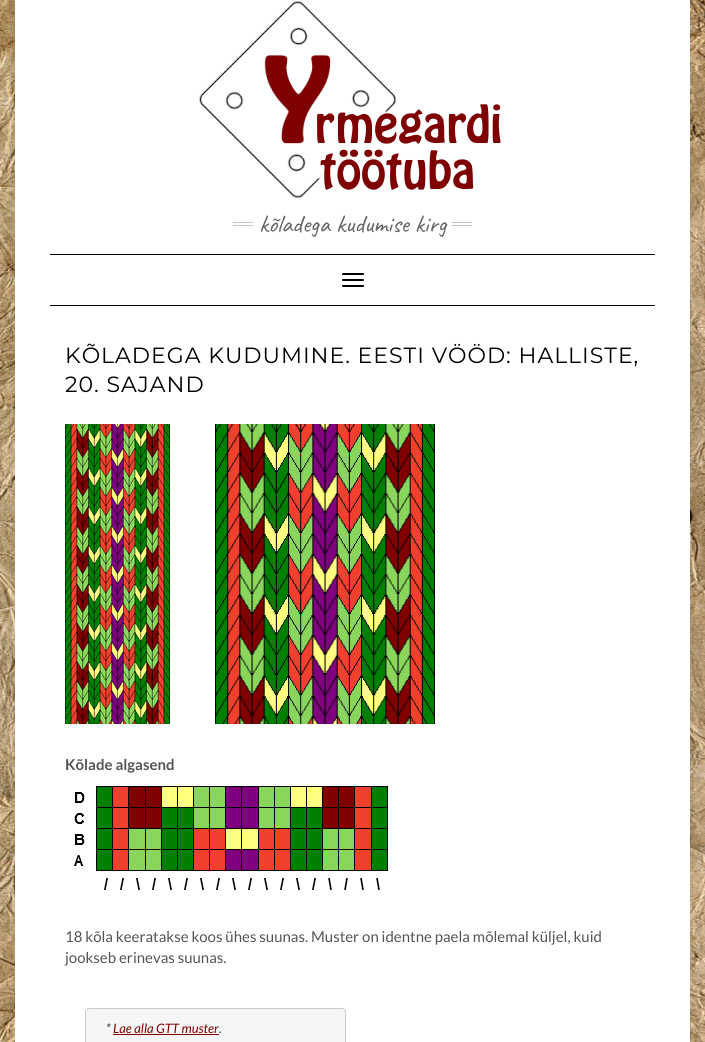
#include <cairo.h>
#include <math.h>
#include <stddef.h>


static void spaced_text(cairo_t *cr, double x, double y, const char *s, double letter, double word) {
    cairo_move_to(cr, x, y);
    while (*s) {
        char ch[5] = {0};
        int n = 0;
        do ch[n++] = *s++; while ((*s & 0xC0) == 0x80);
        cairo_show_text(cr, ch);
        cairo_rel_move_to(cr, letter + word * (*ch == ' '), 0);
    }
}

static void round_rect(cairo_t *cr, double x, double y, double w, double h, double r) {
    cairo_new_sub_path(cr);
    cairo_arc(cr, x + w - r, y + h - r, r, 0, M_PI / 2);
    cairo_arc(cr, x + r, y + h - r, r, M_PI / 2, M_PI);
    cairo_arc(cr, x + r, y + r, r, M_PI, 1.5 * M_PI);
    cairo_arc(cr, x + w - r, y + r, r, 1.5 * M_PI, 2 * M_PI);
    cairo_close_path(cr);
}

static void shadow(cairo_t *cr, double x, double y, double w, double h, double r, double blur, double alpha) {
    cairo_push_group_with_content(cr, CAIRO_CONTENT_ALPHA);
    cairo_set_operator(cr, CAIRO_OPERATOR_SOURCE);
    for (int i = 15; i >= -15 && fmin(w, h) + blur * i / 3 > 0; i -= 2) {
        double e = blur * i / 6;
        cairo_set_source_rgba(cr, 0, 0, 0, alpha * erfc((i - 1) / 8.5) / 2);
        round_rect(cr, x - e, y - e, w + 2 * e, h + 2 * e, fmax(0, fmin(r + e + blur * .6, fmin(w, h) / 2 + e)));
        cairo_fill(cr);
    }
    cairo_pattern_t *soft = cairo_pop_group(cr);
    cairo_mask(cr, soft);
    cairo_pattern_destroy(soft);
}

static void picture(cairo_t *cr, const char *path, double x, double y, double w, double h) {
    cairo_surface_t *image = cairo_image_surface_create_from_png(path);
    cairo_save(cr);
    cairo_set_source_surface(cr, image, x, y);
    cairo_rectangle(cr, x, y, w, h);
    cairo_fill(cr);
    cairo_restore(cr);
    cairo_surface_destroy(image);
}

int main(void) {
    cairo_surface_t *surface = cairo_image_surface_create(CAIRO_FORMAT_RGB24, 705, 1042);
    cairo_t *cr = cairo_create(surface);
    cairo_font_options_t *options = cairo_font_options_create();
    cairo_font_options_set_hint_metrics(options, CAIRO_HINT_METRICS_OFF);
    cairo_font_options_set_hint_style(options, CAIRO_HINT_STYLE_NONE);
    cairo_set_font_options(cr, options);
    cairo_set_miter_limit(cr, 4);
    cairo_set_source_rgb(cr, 1, 1, 1);
    cairo_paint(cr);
    picture(cr, "img1.png", 0, 0, 705, 1042);
    cairo_set_source_rgb(cr, 0, 0, 0);
    shadow(cr, 15, 0, 675, 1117, 0, 25, 0.06);
    cairo_set_source_rgb(cr, 1, 1, 1);
    cairo_rectangle(cr, 15, 0, 675, 1042);
    cairo_fill(cr);
    picture(cr, "img2.png", 199, 0, 302, 199);
    cairo_set_source_rgb(cr, 0.769, 0.769, 0.769);
    cairo_rectangle(cr, 233, 222, 20, 1);
    cairo_fill(cr);
    cairo_rectangle(cr, 233, 225, 20, 1);
    cairo_fill(cr);
    cairo_select_font_face(cr, "Caveat", CAIRO_FONT_SLANT_NORMAL, CAIRO_FONT_WEIGHT_NORMAL);
    cairo_set_font_size(cr, 25);
    cairo_set_source_rgb(cr, 0.392, 0.392, 0.392);
    cairo_move_to(cr, 259, 232);
    cairo_show_text(cr, "kõladega kudumise kirg");
    cairo_set_source_rgb(cr, 0.769, 0.769, 0.769);
    cairo_rectangle(cr, 452, 222, 20, 1);
    cairo_fill(cr);
    cairo_rectangle(cr, 452, 225, 20, 1);
    cairo_fill(cr);
    cairo_set_source_rgb(cr, 0, 0, 0);
    cairo_rectangle(cr, 50, 254, 605, 1);
    cairo_fill(cr);
    cairo_rectangle(cr, 50, 305, 605, 1);
    cairo_fill(cr);
    round_rect(cr, 342, 273, 22, 2, 1);
    cairo_fill(cr);
    round_rect(cr, 342, 279, 22, 2, 1);
    cairo_fill(cr);
    round_rect(cr, 342, 285, 22, 2, 1);
    cairo_fill(cr);
    cairo_select_font_face(cr, "Montserrat", CAIRO_FONT_SLANT_NORMAL, CAIRO_FONT_WEIGHT_NORMAL);
    cairo_set_font_size(cr, 22);
    spaced_text(cr, 65, 363, "KÕLADEGA KUDUMINE. EESTI VÖÖD: HALLISTE,", 1, 0);
    spaced_text(cr, 65, 392, "20. SAJAND", 1, 0);
    picture(cr, "img3.png", 65, 424, 105, 300);
    picture(cr, "img4.png", 215, 424, 220, 300);
    cairo_select_font_face(cr, "Lato", CAIRO_FONT_SLANT_NORMAL, CAIRO_FONT_WEIGHT_BOLD);
    cairo_set_font_size(cr, 15);
    cairo_set_source_rgb(cr, 0.329, 0.329, 0.329);
    cairo_move_to(cr, 65, 770);
    cairo_show_text(cr, "Kõlade algasend");
    picture(cr, "img5.png", 74, 786, 314, 104);
    cairo_select_font_face(cr, "Lato", CAIRO_FONT_SLANT_NORMAL, CAIRO_FONT_WEIGHT_NORMAL);
    cairo_move_to(cr, 65, 942);
    cairo_show_text(cr, "18 kõla keeratakse koos ühes suunas. Muster on identne paela mõlemal küljel, kuid");
    cairo_move_to(cr, 65, 963);
    cairo_show_text(cr, "jookseb erinevas suunas.");
    cairo_set_source_rgb(cr, 0.961, 0.961, 0.961);
    round_rect(cr, 85.5, 1008.5, 260, 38, 3.5);
    cairo_fill_preserve(cr);
    cairo_set_source_rgb(cr, 0.8, 0.8, 0.8);
    cairo_set_line_width(cr, 1);
    cairo_stroke(cr);
    cairo_select_font_face(cr, "Lato", CAIRO_FONT_SLANT_ITALIC, CAIRO_FONT_WEIGHT_NORMAL);
    cairo_set_font_size(cr, 13);
    cairo_set_source_rgb(cr, 0.2, 0.2, 0.2);
    cairo_move_to(cr, 106, 1033);
    cairo_show_text(cr, "*");
    cairo_set_source_rgb(cr, 0.502, 0, 0);
    cairo_move_to(cr, 113, 1033);
    cairo_show_text(cr, "Lae alla GTT muster");
    cairo_rectangle(cr, 113, 1034, 106, 1);
    cairo_fill(cr);
    cairo_set_source_rgb(cr, 0.2, 0.2, 0.2);
    cairo_move_to(cr, 219, 1033);
    cairo_show_text(cr, ".");
    cairo_surface_write_to_png(surface, "page.png");
    cairo_font_options_destroy(options);
    cairo_destroy(cr);
    cairo_surface_destroy(surface);
    return 0;
}
